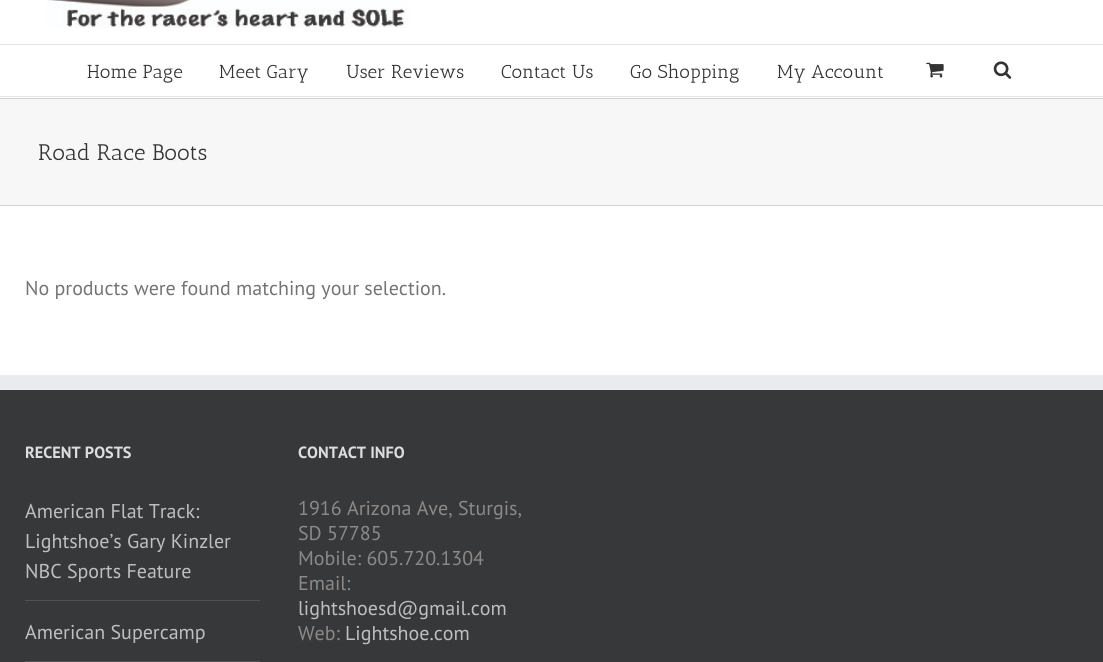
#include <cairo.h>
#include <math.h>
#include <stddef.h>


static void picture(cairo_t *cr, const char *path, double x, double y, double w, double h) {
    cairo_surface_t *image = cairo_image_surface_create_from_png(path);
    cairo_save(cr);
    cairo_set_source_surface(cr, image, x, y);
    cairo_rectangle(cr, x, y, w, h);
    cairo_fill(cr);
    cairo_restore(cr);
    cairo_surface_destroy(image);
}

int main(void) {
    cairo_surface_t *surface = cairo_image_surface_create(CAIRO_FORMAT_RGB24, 1103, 662);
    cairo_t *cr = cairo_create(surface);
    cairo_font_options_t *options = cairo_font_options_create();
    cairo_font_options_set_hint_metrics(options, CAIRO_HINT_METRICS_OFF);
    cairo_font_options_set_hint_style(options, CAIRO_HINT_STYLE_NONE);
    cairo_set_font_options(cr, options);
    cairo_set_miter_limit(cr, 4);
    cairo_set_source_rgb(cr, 1, 1, 1);
    cairo_paint(cr);
    cairo_set_source_rgb(cr, 0.898, 0.898, 0.898);
    cairo_rectangle(cr, 0, 44, 1103, 1);
    cairo_fill(cr);
    picture(cr, "img1.png", 46, 0, 363, 28);
    cairo_rectangle(cr, 0, 96, 1103, 1);
    cairo_fill(cr);
    cairo_select_font_face(cr, "Antic Slab", CAIRO_FONT_SLANT_NORMAL, CAIRO_FONT_WEIGHT_NORMAL);
    cairo_set_font_size(cr, 18.75);
    cairo_set_source_rgb(cr, 0.2, 0.2, 0.2);
    cairo_move_to(cr, 87, 78);
    cairo_show_text(cr, "Home Page");
    cairo_move_to(cr, 219, 78);
    cairo_show_text(cr, "Meet Gary");
    cairo_move_to(cr, 346, 78);
    cairo_show_text(cr, "User Reviews");
    cairo_move_to(cr, 501, 78);
    cairo_show_text(cr, "Contact Us");
    cairo_move_to(cr, 630, 78);
    cairo_show_text(cr, "Go Shopping");
    cairo_move_to(cr, 777, 78);
    cairo_show_text(cr, "My Account");
    picture(cr, "img2.png", 926, 62, 18, 16);
    picture(cr, "img3.png", 993, 61, 19, 18);
    cairo_set_source_rgb(cr, 0.965, 0.965, 0.965);
    cairo_rectangle(cr, 0, 99, 1103, 106);
    cairo_fill(cr);
    cairo_set_source_rgb(cr, 0.824, 0.827, 0.831);
    cairo_rectangle(cr, 0, 98, 1103, 1);
    cairo_fill(cr);
    cairo_rectangle(cr, 0, 205, 1103, 1);
    cairo_fill(cr);
    cairo_set_font_size(cr, 22.5);
    cairo_set_source_rgb(cr, 0.2, 0.2, 0.2);
    cairo_move_to(cr, 38, 160);
    cairo_show_text(cr, "Road Race Boots");
    cairo_select_font_face(cr, "PT Sans", CAIRO_FONT_SLANT_NORMAL, CAIRO_FONT_WEIGHT_NORMAL);
    cairo_set_font_size(cr, 20);
    cairo_set_source_rgb(cr, 0.455, 0.455, 0.455);
    cairo_move_to(cr, 25, 295);
    cairo_show_text(cr, "No products were found matching your selection.");
    cairo_set_source_rgb(cr, 0.212, 0.22, 0.224);
    cairo_rectangle(cr, 0, 390, 1103, 272);
    cairo_fill(cr);
    cairo_set_source_rgb(cr, 0.914, 0.918, 0.933);
    cairo_rectangle(cr, 0, 375, 1103, 15);
    cairo_fill(cr);
    cairo_select_font_face(cr, "PT Sans", CAIRO_FONT_SLANT_NORMAL, CAIRO_FONT_WEIGHT_BOLD);
    cairo_set_font_size(cr, 16.25);
    cairo_set_source_rgb(cr, 0.867, 0.867, 0.867);
    cairo_move_to(cr, 25, 458);
    cairo_show_text(cr, "RECENT POSTS");
    cairo_set_source_rgb(cr, 0.314, 0.318, 0.322);
    cairo_rectangle(cr, 25, 600, 235, 1);
    cairo_fill(cr);
    cairo_select_font_face(cr, "PT Sans", CAIRO_FONT_SLANT_NORMAL, CAIRO_FONT_WEIGHT_NORMAL);
    cairo_set_font_size(cr, 20);
    cairo_set_source_rgb(cr, 0.749, 0.749, 0.749);
    cairo_move_to(cr, 25, 518);
    cairo_show_text(cr, "American Flat Track:");
    cairo_move_to(cr, 25, 548);
    cairo_show_text(cr, "Lightshoe’s Gary Kinzler");
    cairo_move_to(cr, 25, 578);
    cairo_show_text(cr, "NBC Sports Feature");
    cairo_set_source_rgb(cr, 0.314, 0.318, 0.322);
    cairo_rectangle(cr, 25, 661, 235, 1);
    cairo_fill(cr);
    cairo_set_source_rgb(cr, 0.749, 0.749, 0.749);
    cairo_move_to(cr, 25, 639);
    cairo_show_text(cr, "American Supercamp");
    cairo_select_font_face(cr, "PT Sans", CAIRO_FONT_SLANT_NORMAL, CAIRO_FONT_WEIGHT_BOLD);
    cairo_set_font_size(cr, 16.25);
    cairo_set_source_rgb(cr, 0.867, 0.867, 0.867);
    cairo_move_to(cr, 298, 458);
    cairo_show_text(cr, "CONTACT INFO");
    cairo_select_font_face(cr, "PT Sans", CAIRO_FONT_SLANT_NORMAL, CAIRO_FONT_WEIGHT_NORMAL);
    cairo_set_font_size(cr, 20);
    cairo_set_source_rgb(cr, 0.549, 0.537, 0.537);
    cairo_move_to(cr, 298, 515);
    cairo_show_text(cr, "1916 Arizona Ave, Sturgis,");
    cairo_move_to(cr, 298, 540);
    cairo_show_text(cr, "SD 57785");
    cairo_move_to(cr, 298, 565);
    cairo_show_text(cr, "Mobile: 605.720.1304");
    cairo_move_to(cr, 298, 590);
    cairo_show_text(cr, "Email:");
    cairo_set_source_rgb(cr, 0.749, 0.749, 0.749);
    cairo_move_to(cr, 298, 615);
    cairo_show_text(cr, "lightshoesd@gmail.com");
    cairo_set_source_rgb(cr, 0.549, 0.537, 0.537);
    cairo_move_to(cr, 298, 640);
    cairo_show_text(cr, "Web:");
    cairo_set_source_rgb(cr, 0.749, 0.749, 0.749);
    cairo_move_to(cr, 345, 640);
    cairo_show_text(cr, "Lightshoe.com");
    cairo_surface_write_to_png(surface, "page.png");
    cairo_font_options_destroy(options);
    cairo_destroy(cr);
    cairo_surface_destroy(surface);
    return 0;
}
